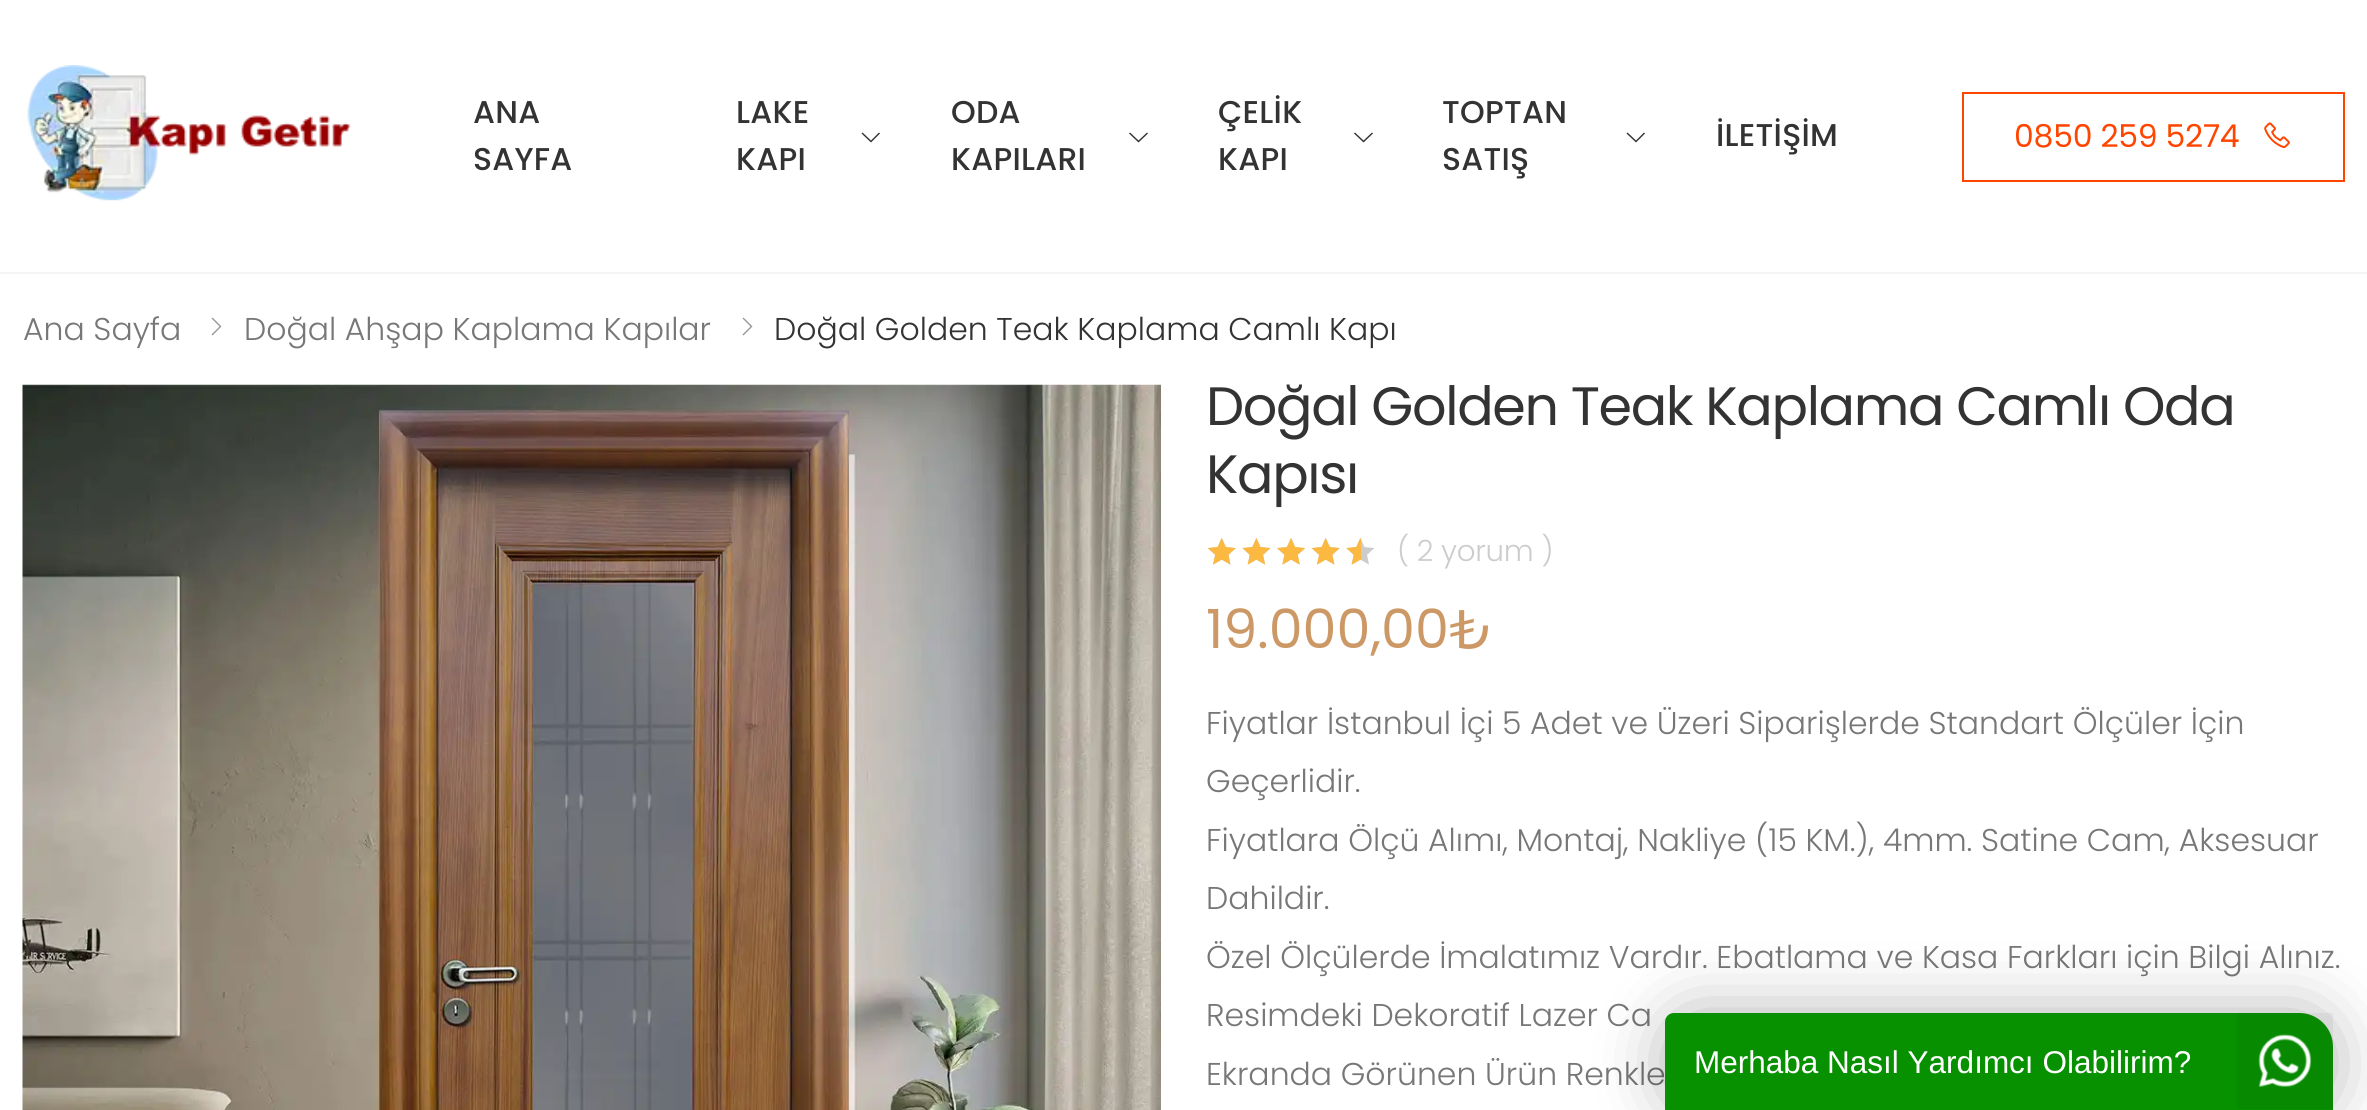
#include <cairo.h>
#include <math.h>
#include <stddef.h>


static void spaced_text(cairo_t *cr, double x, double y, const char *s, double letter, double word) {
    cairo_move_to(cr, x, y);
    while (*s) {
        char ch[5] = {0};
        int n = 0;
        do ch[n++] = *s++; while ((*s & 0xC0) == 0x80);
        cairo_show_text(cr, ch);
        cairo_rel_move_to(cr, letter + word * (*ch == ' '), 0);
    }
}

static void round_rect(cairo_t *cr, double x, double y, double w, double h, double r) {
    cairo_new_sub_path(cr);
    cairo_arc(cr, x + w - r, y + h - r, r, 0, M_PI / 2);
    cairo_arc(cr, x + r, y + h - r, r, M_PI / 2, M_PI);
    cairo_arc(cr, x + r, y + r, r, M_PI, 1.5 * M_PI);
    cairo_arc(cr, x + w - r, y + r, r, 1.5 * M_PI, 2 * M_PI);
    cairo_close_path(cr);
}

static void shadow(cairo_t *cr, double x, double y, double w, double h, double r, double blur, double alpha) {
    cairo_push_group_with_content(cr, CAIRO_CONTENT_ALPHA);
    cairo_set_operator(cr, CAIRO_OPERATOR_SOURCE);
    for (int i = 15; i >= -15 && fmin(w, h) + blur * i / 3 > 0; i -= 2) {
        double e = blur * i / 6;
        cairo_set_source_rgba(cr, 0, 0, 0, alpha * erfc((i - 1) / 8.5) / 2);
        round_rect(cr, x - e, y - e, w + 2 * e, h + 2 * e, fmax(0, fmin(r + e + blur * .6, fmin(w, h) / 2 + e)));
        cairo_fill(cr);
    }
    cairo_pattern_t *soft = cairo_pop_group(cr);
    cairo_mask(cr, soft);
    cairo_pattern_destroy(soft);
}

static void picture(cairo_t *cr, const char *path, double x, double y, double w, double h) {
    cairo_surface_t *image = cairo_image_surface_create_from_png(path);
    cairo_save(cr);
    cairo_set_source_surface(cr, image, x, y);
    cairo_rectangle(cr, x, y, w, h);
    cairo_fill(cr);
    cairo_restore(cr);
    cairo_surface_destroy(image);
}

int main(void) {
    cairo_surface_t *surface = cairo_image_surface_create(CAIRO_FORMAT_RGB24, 2367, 1110);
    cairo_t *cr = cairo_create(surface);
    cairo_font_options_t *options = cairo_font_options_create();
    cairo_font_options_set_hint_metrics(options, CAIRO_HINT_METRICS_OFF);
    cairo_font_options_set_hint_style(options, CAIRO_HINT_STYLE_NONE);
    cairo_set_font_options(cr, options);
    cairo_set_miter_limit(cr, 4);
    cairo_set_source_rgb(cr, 1, 1, 1);
    cairo_paint(cr);
    cairo_set_source_rgb(cr, 0.957, 0.957, 0.957);
    cairo_rectangle(cr, 0, 272, 2367, 2);
    cairo_fill(cr);
    picture(cr, "img1.png", 27, 65, 324, 136);
    cairo_select_font_face(cr, "Poppins Medium", CAIRO_FONT_SLANT_NORMAL, CAIRO_FONT_WEIGHT_NORMAL);
    cairo_set_font_size(cr, 31.5);
    cairo_set_source_rgb(cr, 0.2, 0.2, 0.2);
    spaced_text(cr, 473, 123, "ANA", 0.25, 0);
    spaced_text(cr, 473, 170, "SAYFA", 0.25, 0);
    spaced_text(cr, 736, 123, "LAKE", 0.25, 0);
    cairo_new_path(cr);
    cairo_move_to(cr, 862.5, 132.5);
    cairo_line_to(cr, 871, 140.5);
    cairo_line_to(cr, 879, 132.5);
    cairo_line_to(cr, 880, 133.5);
    cairo_line_to(cr, 871, 142.5);
    cairo_line_to(cr, 861.5, 133.5);
    cairo_close_path(cr);
    cairo_fill(cr);
    spaced_text(cr, 736, 170, "KAPI", 0.25, 0);
    spaced_text(cr, 951, 123, "ODA", 0.25, 0);
    cairo_new_path(cr);
    cairo_move_to(cr, 1130, 132.5);
    cairo_line_to(cr, 1138.5, 140.5);
    cairo_line_to(cr, 1147, 132.5);
    cairo_line_to(cr, 1148, 133.5);
    cairo_line_to(cr, 1138.5, 142.5);
    cairo_line_to(cr, 1129, 133.5);
    cairo_close_path(cr);
    cairo_fill(cr);
    spaced_text(cr, 951, 170, "KAPILARI", 0.25, 0);
    spaced_text(cr, 1218, 123, "ÇELİK", 0.25, 0);
    cairo_new_path(cr);
    cairo_move_to(cr, 1355, 132.5);
    cairo_line_to(cr, 1363.5, 140.5);
    cairo_line_to(cr, 1372, 132.5);
    cairo_line_to(cr, 1373, 133.5);
    cairo_line_to(cr, 1363.5, 142.5);
    cairo_line_to(cr, 1354, 133.5);
    cairo_close_path(cr);
    cairo_fill(cr);
    spaced_text(cr, 1218, 170, "KAPI", 0.25, 0);
    spaced_text(cr, 1442, 123, "TOPTAN", 0.25, 0);
    cairo_new_path(cr);
    cairo_move_to(cr, 1627.5, 132.5);
    cairo_line_to(cr, 1636, 140.5);
    cairo_line_to(cr, 1644, 132.5);
    cairo_line_to(cr, 1645, 133.5);
    cairo_line_to(cr, 1636, 142.5);
    cairo_line_to(cr, 1626.5, 133.5);
    cairo_close_path(cr);
    cairo_fill(cr);
    spaced_text(cr, 1442, 170, "SATIŞ", 0.25, 0);
    spaced_text(cr, 1716, 146, "İLETİŞİM", 0.25, 0);
    cairo_rectangle(cr, 1963, 93, 381, 88);
    cairo_set_source_rgb(cr, 1, 0.271, 0);
    cairo_stroke(cr);
    cairo_select_font_face(cr, "Poppins", CAIRO_FONT_SLANT_NORMAL, CAIRO_FONT_WEIGHT_NORMAL);
    spaced_text(cr, 2014, 147, "0850 259 5274", -0.25, 0);
    picture(cr, "img2.png", 2264, 122, 26, 26);
    cairo_select_font_face(cr, "Poppins Light", CAIRO_FONT_SLANT_NORMAL, CAIRO_FONT_WEIGHT_NORMAL);
    cairo_set_source_rgb(cr, 0.467, 0.467, 0.467);
    cairo_move_to(cr, 23, 340);
    cairo_show_text(cr, "Ana Sayfa");
    cairo_set_source_rgb(cr, 0.6, 0.6, 0.6);
    cairo_new_path(cr);
    cairo_move_to(cr, 212.5, 317.5);
    cairo_line_to(cr, 221.5, 326.5);
    cairo_line_to(cr, 212.5, 335.5);
    cairo_line_to(cr, 211.5, 334.5);
    cairo_line_to(cr, 219.5, 326.5);
    cairo_line_to(cr, 211.5, 318.5);
    cairo_close_path(cr);
    cairo_fill(cr);
    cairo_set_source_rgb(cr, 0.467, 0.467, 0.467);
    cairo_move_to(cr, 244, 340);
    cairo_show_text(cr, "Doğal Ahşap Kaplama Kapılar");
    cairo_set_source_rgb(cr, 0.6, 0.6, 0.6);
    cairo_new_path(cr);
    cairo_move_to(cr, 743.5, 317.5);
    cairo_line_to(cr, 752.5, 326.5);
    cairo_line_to(cr, 743.5, 335.5);
    cairo_line_to(cr, 742.5, 334.5);
    cairo_line_to(cr, 750.5, 326.5);
    cairo_line_to(cr, 742.5, 318.5);
    cairo_close_path(cr);
    cairo_fill(cr);
    cairo_set_source_rgb(cr, 0.2, 0.2, 0.2);
    cairo_move_to(cr, 774, 340);
    cairo_show_text(cr, "Doğal Golden Teak Kaplama Camlı Kapı");
    picture(cr, "img3.png", 22, 384, 1139, 726);
    cairo_select_font_face(cr, "Poppins", CAIRO_FONT_SLANT_NORMAL, CAIRO_FONT_WEIGHT_NORMAL);
    cairo_set_font_size(cr, 54);
    spaced_text(cr, 1206, 425, "Doğal Golden Teak Kaplama Camlı Oda", -1.35, 0);
    spaced_text(cr, 1206, 493, "Kapısı", -1.35, 0);
    picture(cr, "img5.png", 1208, 538, 167, 27);
    picture(cr, "img4.png", 1207, 538, 154, 27);
    cairo_select_font_face(cr, "Poppins Light", CAIRO_FONT_SLANT_NORMAL, CAIRO_FONT_WEIGHT_NORMAL);
    cairo_set_font_size(cr, 29.25);
    cairo_set_source_rgb(cr, 0.8, 0.8, 0.8);
    spaced_text(cr, 1397, 561, "( 2 yorum )", -0.25, 0);
    cairo_select_font_face(cr, "Poppins", CAIRO_FONT_SLANT_NORMAL, CAIRO_FONT_WEIGHT_NORMAL);
    cairo_set_font_size(cr, 54);
    cairo_set_source_rgb(cr, 0.8, 0.6, 0.4);
    cairo_move_to(cr, 1206, 648);
    cairo_show_text(cr, "19.000,00₺");
    cairo_select_font_face(cr, "Poppins Light", CAIRO_FONT_SLANT_NORMAL, CAIRO_FONT_WEIGHT_NORMAL);
    cairo_set_font_size(cr, 31.5);
    cairo_set_source_rgb(cr, 0.467, 0.467, 0.467);
    cairo_move_to(cr, 1206, 734);
    cairo_show_text(cr, "Fiyatlar İstanbul İçi 5 Adet ve Üzeri Siparişlerde Standart Ölçüler İçin");
    cairo_move_to(cr, 1206, 792);
    cairo_show_text(cr, "Geçerlidir.");
    cairo_move_to(cr, 1206, 851);
    cairo_show_text(cr, "Fiyatlara Ölçü Alımı, Montaj, Nakliye (15 KM.), 4mm. Satine Cam, Aksesuar");
    cairo_move_to(cr, 1206, 909);
    cairo_show_text(cr, "Dahildir.");
    cairo_move_to(cr, 1206, 968);
    cairo_show_text(cr, "Özel Ölçülerde İmalatımız Vardır. Ebatlama ve Kasa Farkları için Bilgi Alınız.");
    cairo_move_to(cr, 1206, 1026);
    cairo_show_text(cr, "Resimdeki Dekoratif Lazer Ca");
    cairo_move_to(cr, 1206, 1085);
    cairo_show_text(cr, "Ekranda Görünen Ürün Renkle");
    cairo_set_source_rgb(cr, 0, 0, 0);
    shadow(cr, 1665, 1013, 668, 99, 34, 34, 0.3);
    cairo_set_source_rgb(cr, 0.031, 0.569, 0.004);
    cairo_new_path(cr);
    cairo_move_to(cr, 1674, 1013);
    cairo_line_to(cr, 2299, 1013);
    cairo_curve_to(cr, 2318, 1013, 2333, 1028, 2333, 1047);
    cairo_line_to(cr, 2333, 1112);
    cairo_line_to(cr, 1665, 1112);
    cairo_line_to(cr, 1665, 1022);
    cairo_curve_to(cr, 1665, 1017, 1669, 1013, 1674, 1013);
    cairo_close_path(cr);
    cairo_fill(cr);
    cairo_select_font_face(cr, "Liberation Sans", CAIRO_FONT_SLANT_NORMAL, CAIRO_FONT_WEIGHT_NORMAL);
    cairo_set_source_rgb(cr, 1, 1, 1);
    cairo_move_to(cr, 1694, 1073);
    cairo_show_text(cr, "Merhaba Nasıl Yardımcı Olabilirim?");
    cairo_set_source_rgba(cr, 0, 0, 0, 0.05);
    cairo_rectangle(cr, 2237, 1013, 96, 96);
    cairo_fill(cr);
    picture(cr, "img6.png", 2258, 1034, 54, 53);
    cairo_surface_write_to_png(surface, "page.png");
    cairo_font_options_destroy(options);
    cairo_destroy(cr);
    cairo_surface_destroy(surface);
    return 0;
}
